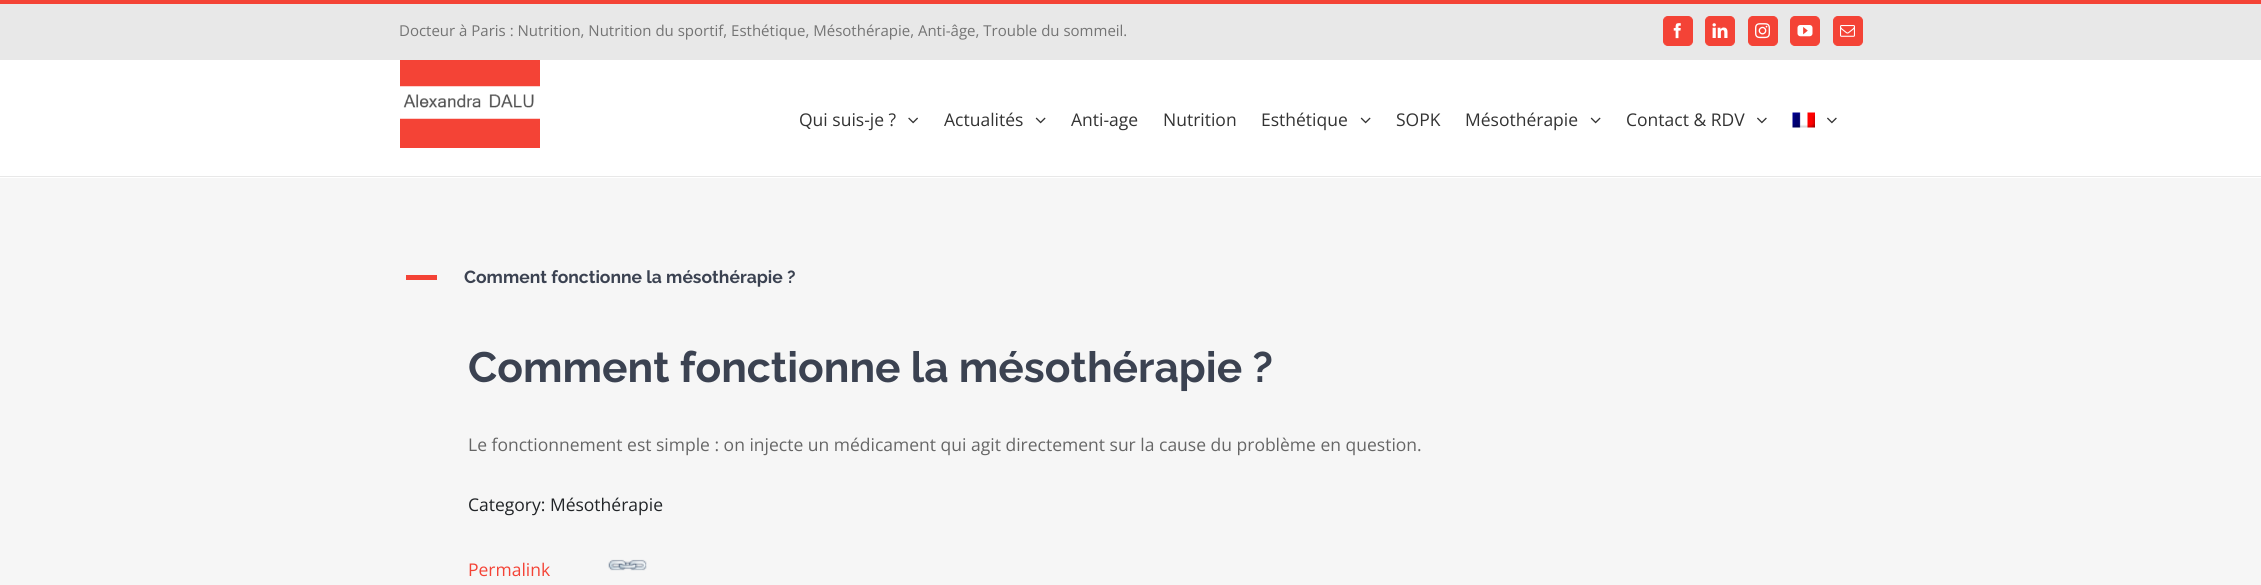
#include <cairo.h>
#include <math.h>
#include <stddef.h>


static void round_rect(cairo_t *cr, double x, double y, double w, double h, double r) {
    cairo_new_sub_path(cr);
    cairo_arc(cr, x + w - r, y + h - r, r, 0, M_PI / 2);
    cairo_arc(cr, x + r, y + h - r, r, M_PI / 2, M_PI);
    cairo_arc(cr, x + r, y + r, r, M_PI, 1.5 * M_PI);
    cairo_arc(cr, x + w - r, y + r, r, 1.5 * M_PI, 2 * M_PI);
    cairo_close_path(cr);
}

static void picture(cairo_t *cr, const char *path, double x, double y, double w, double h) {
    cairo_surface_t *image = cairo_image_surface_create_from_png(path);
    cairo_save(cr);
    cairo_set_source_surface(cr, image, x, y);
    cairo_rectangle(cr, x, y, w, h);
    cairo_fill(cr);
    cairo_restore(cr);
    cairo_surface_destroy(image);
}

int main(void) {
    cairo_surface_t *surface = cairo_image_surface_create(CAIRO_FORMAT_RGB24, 2261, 585);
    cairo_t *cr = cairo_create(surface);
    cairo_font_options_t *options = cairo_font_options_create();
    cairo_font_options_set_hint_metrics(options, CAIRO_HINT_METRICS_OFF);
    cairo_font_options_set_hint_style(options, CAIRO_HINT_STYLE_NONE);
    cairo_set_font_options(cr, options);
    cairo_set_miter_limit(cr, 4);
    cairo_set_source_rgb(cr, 0.961, 0.961, 0.961);
    cairo_paint(cr);
    cairo_set_source_rgb(cr, 0.91, 0.91, 0.91);
    cairo_rectangle(cr, 0, 4, 2261, 56);
    cairo_fill(cr);
    cairo_set_source_rgb(cr, 0.957, 0.263, 0.212);
    cairo_rectangle(cr, 0, 0, 2261, 4);
    cairo_fill(cr);
    cairo_select_font_face(cr, "Open Sans", CAIRO_FONT_SLANT_NORMAL, CAIRO_FONT_WEIGHT_NORMAL);
    cairo_set_font_size(cr, 15);
    cairo_set_source_rgb(cr, 0.455, 0.455, 0.455);
    cairo_move_to(cr, 399, 36);
    cairo_show_text(cr, "Docteur à Paris : Nutrition, Nutrition du sportif, Esthétique, Mésothérapie, Anti-âge, Trouble du sommeil.");
    cairo_set_source_rgb(cr, 0.957, 0.263, 0.212);
    round_rect(cr, 1663.5, 16.5, 29, 29, 4.5);
    cairo_fill_preserve(cr);
    cairo_set_line_width(cr, 1);
    cairo_stroke(cr);
    picture(cr, "img1.png", 1673, 23, 8, 16);
    round_rect(cr, 1705.5, 16.5, 29, 29, 4.5);
    cairo_fill_preserve(cr);
    cairo_stroke(cr);
    picture(cr, "img2.png", 1712, 23, 16, 15);
    round_rect(cr, 1748.5, 16.5, 29, 29, 4.5);
    cairo_fill_preserve(cr);
    cairo_stroke(cr);
    picture(cr, "img3.png", 1755, 23, 15, 16);
    round_rect(cr, 1790.5, 16.5, 29, 29, 4.5);
    cairo_fill_preserve(cr);
    cairo_stroke(cr);
    picture(cr, "img4.png", 1797, 25, 16, 12);
    round_rect(cr, 1833.5, 16.5, 29, 29, 4.5);
    cairo_fill_preserve(cr);
    cairo_stroke(cr);
    picture(cr, "img5.png", 1840, 25, 15, 12);
    cairo_set_source_rgb(cr, 1, 1, 1);
    cairo_rectangle(cr, 0, 60, 2261, 118);
    cairo_fill(cr);
    cairo_set_source_rgb(cr, 0.91, 0.91, 0.91);
    cairo_rectangle(cr, 0, 176, 2261, 1);
    cairo_fill(cr);
    cairo_set_source_rgb(cr, 0.957, 0.263, 0.212);
    cairo_rectangle(cr, 400, 60, 140, 88);
    cairo_fill(cr);
    picture(cr, "img6.png", 400, 86, 140, 33);
    cairo_set_font_size(cr, 17.5);
    cairo_set_source_rgb(cr, 0.2, 0.2, 0.2);
    cairo_move_to(cr, 799, 126);
    cairo_show_text(cr, "Qui suis-je ?");
    picture(cr, "img7.png", 908, 117, 10, 7);
    cairo_move_to(cr, 944, 126);
    cairo_show_text(cr, "Actualités");
    picture(cr, "img8.png", 1035, 117, 11, 7);
    cairo_move_to(cr, 1071, 126);
    cairo_show_text(cr, "Anti-age");
    cairo_move_to(cr, 1163, 126);
    cairo_show_text(cr, "Nutrition");
    cairo_move_to(cr, 1261, 126);
    cairo_show_text(cr, "Esthétique");
    picture(cr, "img8.png", 1360, 117, 11, 7);
    cairo_move_to(cr, 1396, 126);
    cairo_show_text(cr, "SOPK");
    cairo_move_to(cr, 1465, 126);
    cairo_show_text(cr, "Mésothérapie");
    picture(cr, "img8.png", 1590, 117, 11, 7);
    cairo_move_to(cr, 1626, 126);
    cairo_show_text(cr, "Contact & RDV");
    picture(cr, "img9.png", 1757, 117, 10, 7);
    picture(cr, "img10.png", 1792, 112, 23, 16);
    picture(cr, "img9.png", 1827, 117, 10, 7);
    cairo_set_source_rgb(cr, 0.957, 0.263, 0.212);
    cairo_rectangle(cr, 406, 275, 31, 5);
    cairo_fill(cr);
    cairo_select_font_face(cr, "Raleway Thin", CAIRO_FONT_SLANT_NORMAL, CAIRO_FONT_WEIGHT_NORMAL);
    cairo_set_source_rgb(cr, 0.231, 0.259, 0.318);
    cairo_move_to(cr, 464, 283);
    cairo_show_text(cr, "Comment fonctionne la mésothérapie ?");
    cairo_set_font_size(cr, 42.5);
    cairo_move_to(cr, 468, 382);
    cairo_show_text(cr, "Comment fonctionne la mésothérapie ?");
    cairo_select_font_face(cr, "Open Sans", CAIRO_FONT_SLANT_NORMAL, CAIRO_FONT_WEIGHT_NORMAL);
    cairo_set_font_size(cr, 17.5);
    cairo_set_source_rgb(cr, 0.4, 0.4, 0.4);
    cairo_move_to(cr, 468, 451);
    cairo_show_text(cr, "Le fonctionnement est simple : on injecte un médicament qui agit directement sur la cause du problème en question.");
    cairo_set_source_rgb(cr, 0.129, 0.141, 0.153);
    cairo_move_to(cr, 468, 511);
    cairo_show_text(cr, "Category: Mésothérapie");
    cairo_set_source_rgb(cr, 0.957, 0.263, 0.212);
    cairo_move_to(cr, 468, 576);
    cairo_show_text(cr, "Permalink");
    picture(cr, "img11.png", 608, 559, 39, 12);
    cairo_surface_write_to_png(surface, "page.png");
    cairo_font_options_destroy(options);
    cairo_destroy(cr);
    cairo_surface_destroy(surface);
    return 0;
}
